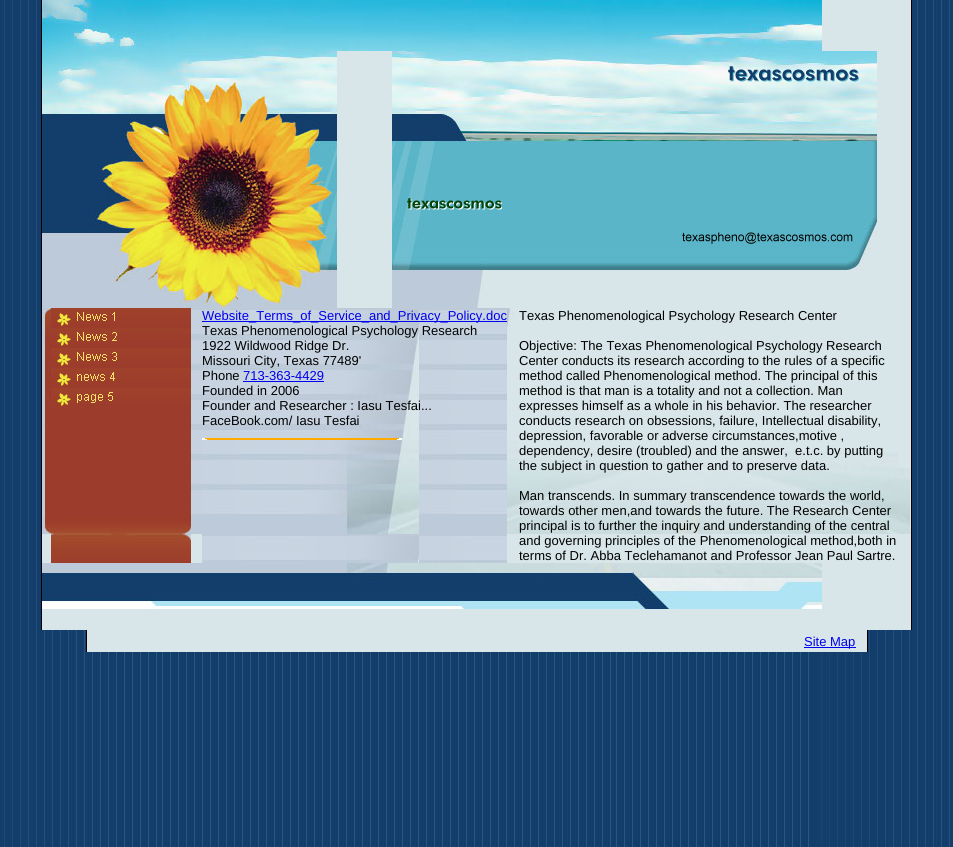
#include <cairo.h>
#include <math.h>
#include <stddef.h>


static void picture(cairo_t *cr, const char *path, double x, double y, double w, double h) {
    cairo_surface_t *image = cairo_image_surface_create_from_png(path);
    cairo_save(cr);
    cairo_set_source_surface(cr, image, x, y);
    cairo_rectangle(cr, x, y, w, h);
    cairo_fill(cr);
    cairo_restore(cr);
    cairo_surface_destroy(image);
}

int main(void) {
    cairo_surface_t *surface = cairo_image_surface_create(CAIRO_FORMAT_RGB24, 953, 847);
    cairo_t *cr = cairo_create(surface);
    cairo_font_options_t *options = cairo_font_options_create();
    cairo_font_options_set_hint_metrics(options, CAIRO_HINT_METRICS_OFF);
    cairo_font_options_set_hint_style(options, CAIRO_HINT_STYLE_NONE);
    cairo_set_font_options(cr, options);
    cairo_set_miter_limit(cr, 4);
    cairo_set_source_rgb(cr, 1, 1, 1);
    cairo_paint(cr);
    picture(cr, "img1.png", 0, 0, 953, 847);
    cairo_set_source_rgb(cr, 0.847, 0.902, 0.914);
    cairo_rectangle(cr, 42, 0, 869, 630);
    cairo_fill(cr);
    cairo_set_source_rgb(cr, 0, 0, 0);
    cairo_rectangle(cr, 911, 0, 1, 630);
    cairo_fill(cr);
    cairo_rectangle(cr, 41, 0, 1, 630);
    cairo_fill(cr);
    picture(cr, "img2.png", 42, 0, 780, 51);
    picture(cr, "img3.png", 42, 51, 295, 24);
    picture(cr, "img4.png", 392, 51, 485, 44);
    picture(cr, "img5.png", 42, 75, 48, 233);
    picture(cr, "img6.png", 90, 75, 247, 233);
    picture(cr, "img7.png", 392, 95, 485, 85);
    picture(cr, "img8.png", 392, 180, 485, 47);
    picture(cr, "img9.png", 392, 227, 485, 20);
    picture(cr, "img10.png", 392, 247, 480, 61);
    picture(cr, "img11.png", 42, 308, 9, 226);
    picture(cr, "img12.png", 51, 328, 140, 235);
    picture(cr, "img13.png", 51, 308, 140, 20);
    picture(cr, "img14.png", 57, 332, 60, 14);
    picture(cr, "img15.png", 51, 348, 140, 18);
    picture(cr, "img16.png", 51, 368, 140, 18);
    picture(cr, "img17.png", 51, 388, 140, 18);
    picture(cr, "img18.png", 191, 308, 11, 226);
    picture(cr, "img19.png", 202, 308, 305, 255);
    cairo_set_source_rgb(cr, 0, 0, 0.933);
    cairo_rectangle(cr, 202, 321, 305, 1);
    cairo_fill(cr);
    cairo_select_font_face(cr, "Liberation Sans", CAIRO_FONT_SLANT_NORMAL, CAIRO_FONT_WEIGHT_NORMAL);
    cairo_set_font_size(cr, 13);
    cairo_move_to(cr, 202, 320);
    cairo_show_text(cr, "Website_Terms_of_Service_and_Privacy_Policy.doc");
    cairo_set_source_rgb(cr, 0, 0, 0);
    cairo_move_to(cr, 202, 335);
    cairo_show_text(cr, "Texas Phenomenological Psychology Research");
    cairo_move_to(cr, 202, 350);
    cairo_show_text(cr, "1922 Wildwood Ridge Dr.");
    cairo_move_to(cr, 202, 365);
    cairo_show_text(cr, "Missouri City, Texas 77489'");
    cairo_move_to(cr, 202, 380);
    cairo_show_text(cr, "Phone");
    cairo_set_source_rgb(cr, 0, 0, 0.933);
    cairo_move_to(cr, 243, 380);
    cairo_show_text(cr, "713-363-4429");
    cairo_rectangle(cr, 243, 381, 81, 1);
    cairo_fill(cr);
    cairo_set_source_rgb(cr, 0, 0, 0);
    cairo_move_to(cr, 202, 395);
    cairo_show_text(cr, "Founded in 2006");
    cairo_move_to(cr, 202, 410);
    cairo_show_text(cr, "Founder and Researcher : Iasu Tesfai...");
    cairo_move_to(cr, 202, 425);
    cairo_show_text(cr, "FaceBook.com/ Iasu Tesfai");
    cairo_set_source_rgb(cr, 1, 1, 1);
    cairo_rectangle(cr, 202, 438, 200, 2);
    cairo_fill(cr);
    cairo_set_source_rgb(cr, 1, 0.667, 0);
    cairo_rectangle(cr, 205, 438, 194, 1);
    cairo_fill(cr);
    cairo_rectangle(cr, 207, 439, 190, 1);
    cairo_fill(cr);
    picture(cr, "img20.png", 507, 308, 12, 226);
    picture(cr, "img21.png", 519, 451, 379, 83);
    cairo_set_source_rgb(cr, 0, 0, 0);
    cairo_move_to(cr, 519, 320);
    cairo_show_text(cr, "Texas Phenomenological Psychology Research Center");
    cairo_move_to(cr, 519, 350);
    cairo_show_text(cr, "Objective: The Texas Phenomenological Psychology Research");
    cairo_move_to(cr, 519, 365);
    cairo_show_text(cr, "Center conducts its research according to the rules of a specific");
    cairo_move_to(cr, 519, 380);
    cairo_show_text(cr, "method called Phenomenological method. The principal of this");
    cairo_move_to(cr, 519, 395);
    cairo_show_text(cr, "method is that man is a totality and not a collection. Man");
    cairo_move_to(cr, 519, 410);
    cairo_show_text(cr, "expresses himself as a whole in his behavior. The researcher");
    cairo_move_to(cr, 519, 425);
    cairo_show_text(cr, "conducts research on obsessions, failure, Intellectual disability,");
    cairo_move_to(cr, 519, 440);
    cairo_show_text(cr, "depression, favorable or adverse circumstances,motive ,");
    cairo_move_to(cr, 519, 455);
    cairo_show_text(cr, "dependency, desire (troubled) and the answer,  e.t.c. by putting");
    cairo_move_to(cr, 519, 470);
    cairo_show_text(cr, "the subject in question to gather and to preserve data.");
    cairo_move_to(cr, 519, 500);
    cairo_show_text(cr, "Man transcends. In summary transcendence towards the world,");
    cairo_move_to(cr, 519, 515);
    cairo_show_text(cr, "towards other men,and towards the future. The Research Center");
    cairo_move_to(cr, 519, 530);
    cairo_show_text(cr, "principal is to further the inquiry and understanding of the central");
    cairo_move_to(cr, 519, 545);
    cairo_show_text(cr, "and governing principles of the Phenomenological method,both in");
    cairo_move_to(cr, 519, 560);
    cairo_show_text(cr, "terms of Dr. Abba Teclehamanot and Professor Jean Paul Sartre.");
    picture(cr, "img22.png", 898, 468, 12, 66);
    picture(cr, "img23.png", 42, 563, 780, 46);
    cairo_set_source_rgb(cr, 0.847, 0.902, 0.914);
    cairo_rectangle(cr, 87, 630, 780, 22);
    cairo_fill(cr);
    cairo_set_source_rgb(cr, 0, 0, 0);
    cairo_rectangle(cr, 867, 630, 1, 22);
    cairo_fill(cr);
    cairo_rectangle(cr, 86, 630, 1, 22);
    cairo_fill(cr);
    cairo_set_source_rgb(cr, 0, 0, 0.933);
    cairo_rectangle(cr, 804, 647, 52, 1);
    cairo_fill(cr);
    cairo_move_to(cr, 804, 646);
    cairo_show_text(cr, "Site Map");
    cairo_surface_write_to_png(surface, "page.png");
    cairo_font_options_destroy(options);
    cairo_destroy(cr);
    cairo_surface_destroy(surface);
    return 0;
}
